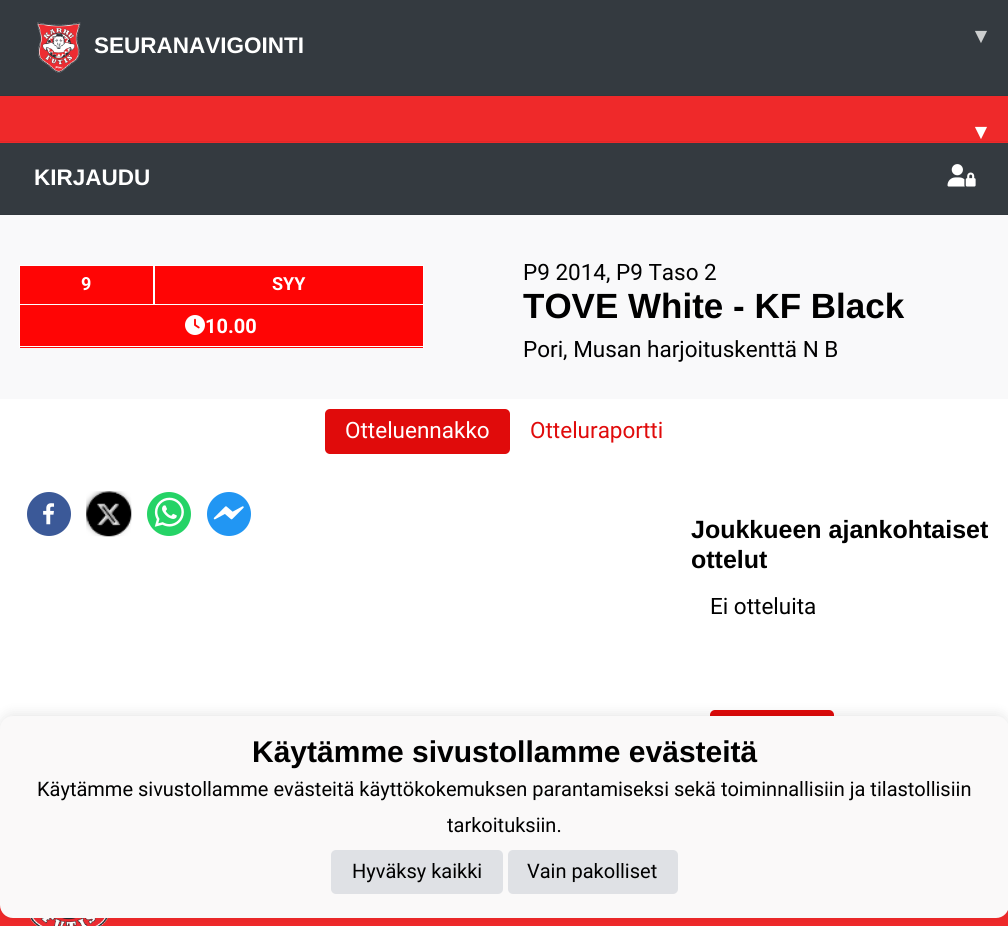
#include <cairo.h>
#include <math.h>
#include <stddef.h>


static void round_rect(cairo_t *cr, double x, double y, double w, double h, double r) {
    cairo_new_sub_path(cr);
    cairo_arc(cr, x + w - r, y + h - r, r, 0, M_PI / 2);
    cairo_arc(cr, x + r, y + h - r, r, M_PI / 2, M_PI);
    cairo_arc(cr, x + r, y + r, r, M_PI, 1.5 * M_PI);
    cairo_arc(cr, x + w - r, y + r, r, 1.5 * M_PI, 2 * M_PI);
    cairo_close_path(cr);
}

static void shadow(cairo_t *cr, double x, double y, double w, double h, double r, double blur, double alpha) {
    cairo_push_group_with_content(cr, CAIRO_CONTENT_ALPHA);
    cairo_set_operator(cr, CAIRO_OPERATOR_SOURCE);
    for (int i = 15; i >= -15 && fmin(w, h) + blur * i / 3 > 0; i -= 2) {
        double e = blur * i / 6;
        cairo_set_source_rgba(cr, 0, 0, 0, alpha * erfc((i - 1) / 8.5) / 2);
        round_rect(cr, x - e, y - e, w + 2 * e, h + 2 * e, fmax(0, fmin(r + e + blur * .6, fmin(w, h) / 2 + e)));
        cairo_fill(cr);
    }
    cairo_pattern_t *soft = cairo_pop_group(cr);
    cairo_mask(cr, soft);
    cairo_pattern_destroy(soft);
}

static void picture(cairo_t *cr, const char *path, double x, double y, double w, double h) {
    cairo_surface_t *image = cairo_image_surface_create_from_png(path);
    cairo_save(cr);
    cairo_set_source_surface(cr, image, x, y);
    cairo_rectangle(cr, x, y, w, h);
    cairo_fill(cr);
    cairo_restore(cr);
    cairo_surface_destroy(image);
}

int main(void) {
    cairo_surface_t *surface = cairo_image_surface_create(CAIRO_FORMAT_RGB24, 1008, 926);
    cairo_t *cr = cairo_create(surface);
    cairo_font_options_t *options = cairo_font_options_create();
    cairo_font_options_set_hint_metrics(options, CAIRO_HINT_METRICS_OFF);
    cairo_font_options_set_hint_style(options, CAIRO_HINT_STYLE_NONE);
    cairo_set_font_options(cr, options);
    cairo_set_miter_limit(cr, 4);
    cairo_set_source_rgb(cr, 1, 1, 1);
    cairo_paint(cr);
    cairo_set_source_rgb(cr, 0.204, 0.227, 0.251);
    cairo_rectangle(cr, 0, 0, 1008, 95);
    cairo_fill(cr);
    cairo_set_source_rgb(cr, 0.192, 0.216, 0.239);
    cairo_rectangle(cr, 0, 95, 1008, 1);
    cairo_fill(cr);
    picture(cr, "img1.png", 37, 22, 44, 51);
    cairo_select_font_face(cr, "Liberation Sans", CAIRO_FONT_SLANT_NORMAL, CAIRO_FONT_WEIGHT_BOLD);
    cairo_set_font_size(cr, 22.5);
    cairo_set_source_rgb(cr, 1, 1, 1);
    cairo_move_to(cr, 94, 53);
    cairo_show_text(cr, "SEURANAVIGOINTI");
    cairo_select_font_face(cr, "DejaVu Sans", CAIRO_FONT_SLANT_NORMAL, CAIRO_FONT_WEIGHT_BOLD);
    cairo_set_source_rgb(cr, 0.8, 0.808, 0.812);
    cairo_move_to(cr, 975, 43);
    cairo_show_text(cr, "▾");
    cairo_set_source_rgb(cr, 0.937, 0.161, 0.165);
    cairo_rectangle(cr, 0, 96, 1008, 47);
    cairo_fill(cr);
    cairo_set_source_rgb(cr, 0.89, 0.153, 0.157);
    cairo_rectangle(cr, 0, 141, 1008, 1);
    cairo_fill(cr);
    cairo_set_source_rgb(cr, 1, 1, 1);
    cairo_move_to(cr, 975, 139);
    cairo_show_text(cr, "▾");
    cairo_set_source_rgb(cr, 0.204, 0.227, 0.251);
    cairo_rectangle(cr, 0, 143, 1008, 71);
    cairo_fill(cr);
    cairo_set_source_rgb(cr, 0.192, 0.216, 0.239);
    cairo_rectangle(cr, 0, 214, 1008, 1);
    cairo_fill(cr);
    cairo_select_font_face(cr, "Liberation Sans", CAIRO_FONT_SLANT_NORMAL, CAIRO_FONT_WEIGHT_BOLD);
    cairo_set_source_rgb(cr, 1, 1, 1);
    cairo_move_to(cr, 34, 185);
    cairo_show_text(cr, "KIRJAUDU");
    picture(cr, "img2.png", 947, 164, 29, 23);
    cairo_set_source_rgb(cr, 0.973, 0.976, 0.98);
    cairo_rectangle(cr, 0, 215, 1008, 184);
    cairo_fill(cr);
    cairo_set_source_rgb(cr, 1, 0.02, 0.02);
    cairo_rectangle(cr, 19.5, 265.5, 134, 39);
    cairo_fill_preserve(cr);
    cairo_set_source_rgb(cr, 1, 1, 1);
    cairo_set_line_width(cr, 1);
    cairo_stroke(cr);
    cairo_select_font_face(cr, "Roboto", CAIRO_FONT_SLANT_NORMAL, CAIRO_FONT_WEIGHT_BOLD);
    cairo_set_font_size(cr, 18);
    cairo_move_to(cr, 81, 290);
    cairo_show_text(cr, "9");
    cairo_set_source_rgb(cr, 1, 0.02, 0.02);
    cairo_rectangle(cr, 154.5, 265.5, 269, 39);
    cairo_fill_preserve(cr);
    cairo_set_source_rgb(cr, 1, 1, 1);
    cairo_stroke(cr);
    cairo_move_to(cr, 272, 290);
    cairo_show_text(cr, "SYY");
    cairo_set_source_rgb(cr, 1, 0.02, 0.02);
    cairo_rectangle(cr, 20, 305, 403, 43);
    cairo_fill(cr);
    cairo_set_source_rgb(cr, 1, 1, 1);
    cairo_rectangle(cr, 423, 305, 1, 43);
    cairo_fill(cr);
    cairo_rectangle(cr, 19, 346, 405, 1);
    cairo_fill(cr);
    cairo_rectangle(cr, 19, 305, 1, 43);
    cairo_fill(cr);
    picture(cr, "img3.png", 185, 315, 20, 20);
    cairo_set_font_size(cr, 20);
    cairo_move_to(cr, 205, 333);
    cairo_show_text(cr, "10.00");
    cairo_select_font_face(cr, "Roboto", CAIRO_FONT_SLANT_NORMAL, CAIRO_FONT_WEIGHT_NORMAL);
    cairo_set_font_size(cr, 22.5);
    cairo_set_source_rgb(cr, 0, 0, 0);
    cairo_move_to(cr, 523, 280);
    cairo_show_text(cr, "P9 2014, P9 Taso 2");
    cairo_select_font_face(cr, "Liberation Sans", CAIRO_FONT_SLANT_NORMAL, CAIRO_FONT_WEIGHT_BOLD);
    cairo_set_font_size(cr, 35);
    cairo_move_to(cr, 523, 318);
    cairo_show_text(cr, "TOVE White - KF Black");
    cairo_select_font_face(cr, "Roboto", CAIRO_FONT_SLANT_NORMAL, CAIRO_FONT_WEIGHT_NORMAL);
    cairo_set_font_size(cr, 22.5);
    cairo_move_to(cr, 523, 357);
    cairo_show_text(cr, "Pori, Musan harjoituskenttä N B");
    cairo_set_source_rgb(cr, 0.878, 0.043, 0.043);
    round_rect(cr, 325, 409, 185, 45, 5);
    cairo_fill(cr);
    cairo_set_source_rgb(cr, 1, 1, 1);
    cairo_move_to(cr, 345, 438);
    cairo_show_text(cr, "Otteluennakko");
    cairo_set_source_rgb(cr, 0.878, 0.043, 0.043);
    cairo_move_to(cr, 530, 438);
    cairo_show_text(cr, "Otteluraportti");
    picture(cr, "img4.png", 27, 492, 44, 44);
    picture(cr, "img5.png", 86, 491, 46, 46);
    picture(cr, "img6.png", 147, 492, 44, 44);
    picture(cr, "img7.png", 207, 492, 44, 44);
    cairo_select_font_face(cr, "Liberation Sans", CAIRO_FONT_SLANT_NORMAL, CAIRO_FONT_WEIGHT_BOLD);
    cairo_set_font_size(cr, 25);
    cairo_set_source_rgb(cr, 0, 0, 0);
    cairo_move_to(cr, 691, 538);
    cairo_show_text(cr, "Joukkueen ajankohtaiset");
    cairo_move_to(cr, 691, 568);
    cairo_show_text(cr, "ottelut");
    cairo_select_font_face(cr, "Roboto", CAIRO_FONT_SLANT_NORMAL, CAIRO_FONT_WEIGHT_NORMAL);
    cairo_set_font_size(cr, 22.5);
    cairo_move_to(cr, 710, 614);
    cairo_show_text(cr, "Ei otteluita");
    cairo_set_source_rgb(cr, 0.878, 0.043, 0.043);
    round_rect(cr, 710, 710, 124, 48, 5);
    cairo_fill(cr);
    cairo_set_source_rgb(cr, 0.937, 0.161, 0.165);
    cairo_rectangle(cr, 0, 905, 1008, 21);
    cairo_fill(cr);
    picture(cr, "img8.png", 30, 918, 78, 8);
    cairo_set_source_rgb(cr, 0, 0, 0);
    shadow(cr, 0, 714, 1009, 201, 13, 6, 0.1);
    cairo_set_source_rgb(cr, 0.98, 0.973, 0.973);
    round_rect(cr, 0, 716, 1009, 202, 13);
    cairo_fill(cr);
    cairo_select_font_face(cr, "Liberation Sans", CAIRO_FONT_SLANT_NORMAL, CAIRO_FONT_WEIGHT_BOLD);
    cairo_set_font_size(cr, 30);
    cairo_set_source_rgb(cr, 0, 0, 0);
    cairo_move_to(cr, 252, 762);
    cairo_show_text(cr, "Käytämme sivustollamme evästeitä");
    cairo_select_font_face(cr, "Roboto", CAIRO_FONT_SLANT_NORMAL, CAIRO_FONT_WEIGHT_NORMAL);
    cairo_set_font_size(cr, 20);
    cairo_move_to(cr, 37, 796);
    cairo_show_text(cr, "Käytämme sivustollamme evästeitä käyttökokemuksen parantamiseksi sekä toiminnallisiin ja tilastollisiin");
    cairo_move_to(cr, 447, 832);
    cairo_show_text(cr, "tarkoituksiin.");
    cairo_set_source_rgb(cr, 0.875, 0.882, 0.898);
    round_rect(cr, 331, 850, 172, 44, 5);
    cairo_fill(cr);
    cairo_set_source_rgb(cr, 0, 0, 0);
    cairo_move_to(cr, 352, 878);
    cairo_show_text(cr, "Hyväksy kaikki");
    cairo_set_source_rgb(cr, 0.875, 0.882, 0.898);
    round_rect(cr, 508, 850, 170, 44, 5);
    cairo_fill(cr);
    cairo_set_source_rgb(cr, 0, 0, 0);
    cairo_move_to(cr, 527, 878);
    cairo_show_text(cr, "Vain pakolliset");
    cairo_surface_write_to_png(surface, "page.png");
    cairo_font_options_destroy(options);
    cairo_destroy(cr);
    cairo_surface_destroy(surface);
    return 0;
}
